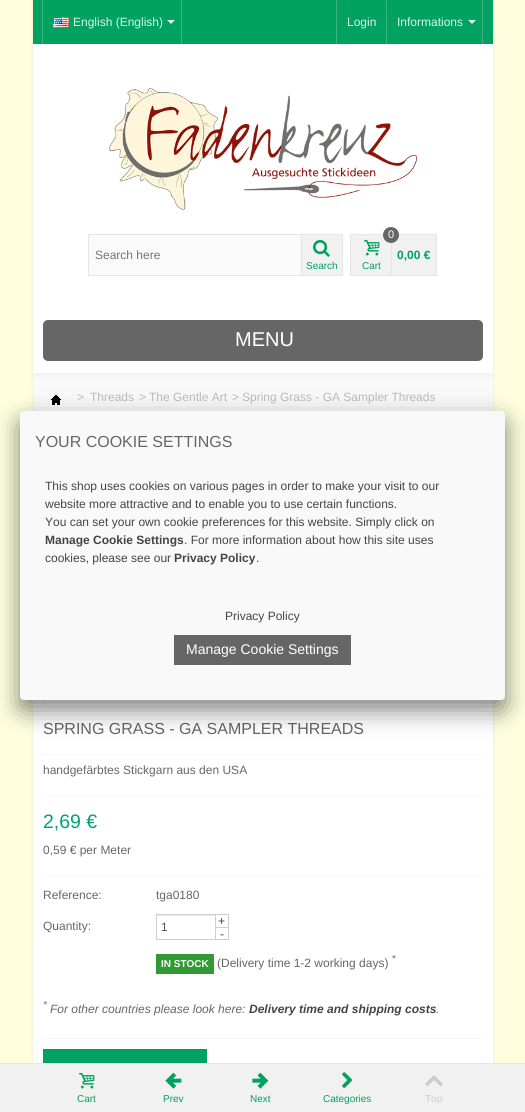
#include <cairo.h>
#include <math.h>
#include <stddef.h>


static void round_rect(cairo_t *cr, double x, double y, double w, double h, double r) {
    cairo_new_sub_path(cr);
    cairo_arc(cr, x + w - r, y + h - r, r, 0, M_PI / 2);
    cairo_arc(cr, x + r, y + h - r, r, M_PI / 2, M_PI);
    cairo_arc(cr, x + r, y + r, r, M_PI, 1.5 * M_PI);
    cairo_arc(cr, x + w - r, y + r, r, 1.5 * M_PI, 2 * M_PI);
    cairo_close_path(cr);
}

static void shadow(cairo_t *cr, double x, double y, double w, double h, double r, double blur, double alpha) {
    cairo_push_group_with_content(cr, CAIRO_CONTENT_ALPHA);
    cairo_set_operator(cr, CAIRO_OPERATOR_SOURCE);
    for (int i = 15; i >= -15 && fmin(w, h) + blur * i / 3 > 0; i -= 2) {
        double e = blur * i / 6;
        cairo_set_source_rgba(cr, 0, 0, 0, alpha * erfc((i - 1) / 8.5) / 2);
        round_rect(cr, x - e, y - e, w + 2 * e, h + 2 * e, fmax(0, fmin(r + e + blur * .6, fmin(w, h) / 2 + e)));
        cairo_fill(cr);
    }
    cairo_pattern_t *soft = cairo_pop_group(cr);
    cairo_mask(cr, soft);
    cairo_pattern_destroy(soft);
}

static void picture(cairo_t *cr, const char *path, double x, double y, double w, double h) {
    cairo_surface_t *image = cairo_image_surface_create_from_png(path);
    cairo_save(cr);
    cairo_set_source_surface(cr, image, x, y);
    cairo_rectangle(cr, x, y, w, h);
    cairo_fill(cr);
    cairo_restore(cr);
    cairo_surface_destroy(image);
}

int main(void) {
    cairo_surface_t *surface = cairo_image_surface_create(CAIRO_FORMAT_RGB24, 525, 1112);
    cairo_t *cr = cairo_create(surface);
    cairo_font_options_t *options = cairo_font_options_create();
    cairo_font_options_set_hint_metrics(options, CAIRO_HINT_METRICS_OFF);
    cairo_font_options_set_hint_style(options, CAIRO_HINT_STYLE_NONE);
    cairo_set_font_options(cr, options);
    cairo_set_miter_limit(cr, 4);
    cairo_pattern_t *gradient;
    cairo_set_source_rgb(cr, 1, 1, 0.878);
    cairo_paint(cr);
    cairo_set_source_rgb(cr, 0, 0, 0);
    shadow(cr, 33, 0, 460, 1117, 0, 1.5, 0.1);
    cairo_set_source_rgb(cr, 1, 1, 1);
    cairo_rectangle(cr, 33, 44, 460, 1019);
    cairo_fill(cr);
    cairo_set_source_rgb(cr, 0, 0.631, 0.38);
    cairo_rectangle(cr, 33, 0, 460, 44);
    cairo_fill(cr);
    cairo_set_source_rgb(cr, 0.227, 0.706, 0.482);
    cairo_rectangle(cr, 181, 0, 1, 44);
    cairo_fill(cr);
    cairo_rectangle(cr, 42, 0, 1, 44);
    cairo_fill(cr);
    picture(cr, "img1.png", 53, 17, 16, 11);
    cairo_select_font_face(cr, "Liberation Sans", CAIRO_FONT_SLANT_NORMAL, CAIRO_FONT_WEIGHT_NORMAL);
    cairo_set_font_size(cr, 12);
    cairo_set_source_rgb(cr, 0.847, 0.965, 0.902);
    cairo_move_to(cr, 73, 26);
    cairo_show_text(cr, "English (English)");
    cairo_new_path(cr);
    cairo_move_to(cr, 167, 20);
    cairo_line_to(cr, 175, 20);
    cairo_line_to(cr, 171, 24);
    cairo_close_path(cr);
    cairo_fill(cr);
    cairo_set_source_rgb(cr, 0.227, 0.706, 0.482);
    cairo_rectangle(cr, 386, 0, 1, 44);
    cairo_fill(cr);
    cairo_rectangle(cr, 336, 0, 1, 44);
    cairo_fill(cr);
    cairo_set_source_rgb(cr, 0.847, 0.965, 0.902);
    cairo_move_to(cr, 347, 26);
    cairo_show_text(cr, "Login");
    cairo_set_source_rgb(cr, 0.227, 0.706, 0.482);
    cairo_rectangle(cr, 482, 0, 1, 44);
    cairo_fill(cr);
    cairo_set_source_rgb(cr, 0.847, 0.965, 0.902);
    cairo_move_to(cr, 397, 26);
    cairo_show_text(cr, "Informations");
    cairo_new_path(cr);
    cairo_move_to(cr, 468, 20);
    cairo_line_to(cr, 476, 20);
    cairo_line_to(cr, 472, 24);
    cairo_close_path(cr);
    cairo_fill(cr);
    picture(cr, "img2.png", 109, 88, 308, 122);
    cairo_set_source_rgb(cr, 0.98, 0.98, 0.98);
    cairo_rectangle(cr, 89, 235, 212, 40);
    cairo_fill(cr);
    cairo_set_source_rgb(cr, 0.898, 0.898, 0.898);
    cairo_rectangle(cr, 88, 234, 213, 1);
    cairo_fill(cr);
    cairo_rectangle(cr, 88, 275, 213, 1);
    cairo_fill(cr);
    cairo_rectangle(cr, 88, 234, 1, 42);
    cairo_fill(cr);
    cairo_set_source_rgb(cr, 0.459, 0.459, 0.459);
    cairo_move_to(cr, 95, 259);
    cairo_show_text(cr, "Search here");
    cairo_set_source_rgb(cr, 0.945, 0.945, 0.945);
    cairo_rectangle(cr, 301.5, 234.5, 41, 41);
    cairo_fill_preserve(cr);
    cairo_set_source_rgb(cr, 0.898, 0.898, 0.898);
    cairo_set_line_width(cr, 1);
    cairo_stroke(cr);
    picture(cr, "img3.png", 313, 240, 17, 17);
    cairo_set_font_size(cr, 10);
    cairo_set_source_rgb(cr, 0, 0.631, 0.38);
    cairo_move_to(cr, 306, 269);
    cairo_show_text(cr, "Search");
    cairo_rectangle(cr, 350.5, 234.5, 86, 41);
    cairo_set_source_rgb(cr, 0.898, 0.898, 0.898);
    cairo_stroke(cr);
    cairo_set_source_rgb(cr, 0.945, 0.945, 0.945);
    cairo_rectangle(cr, 351, 235, 40, 40);
    cairo_fill(cr);
    cairo_rectangle(cr, 392, 235, 44, 40);
    cairo_fill(cr);
    cairo_set_source_rgb(cr, 0.898, 0.898, 0.898);
    cairo_rectangle(cr, 391, 235, 1, 40);
    cairo_fill(cr);
    cairo_set_source_rgb(cr, 0.4, 0.4, 0.4);
    cairo_arc(cr, 391, 235, 8, 0, 2 * M_PI);
    cairo_fill(cr);
    cairo_set_font_size(cr, 11);
    cairo_set_source_rgb(cr, 1, 1, 1);
    cairo_move_to(cr, 388, 238);
    cairo_show_text(cr, "0");
    picture(cr, "img4.png", 364, 239, 16, 17);
    cairo_set_font_size(cr, 10);
    cairo_set_source_rgb(cr, 0, 0.631, 0.38);
    cairo_move_to(cr, 362, 269);
    cairo_show_text(cr, "Cart");
    cairo_select_font_face(cr, "Liberation Sans", CAIRO_FONT_SLANT_NORMAL, CAIRO_FONT_WEIGHT_BOLD);
    cairo_set_font_size(cr, 12);
    cairo_move_to(cr, 397, 259);
    cairo_show_text(cr, "0,00 €");
    cairo_set_source_rgb(cr, 0.4, 0.4, 0.4);
    round_rect(cr, 43, 320, 440, 41, 5);
    cairo_fill(cr);
    cairo_select_font_face(cr, "Liberation Sans", CAIRO_FONT_SLANT_NORMAL, CAIRO_FONT_WEIGHT_NORMAL);
    cairo_set_font_size(cr, 20);
    cairo_set_source_rgb(cr, 1, 1, 1);
    cairo_move_to(cr, 235, 346);
    cairo_show_text(cr, "MENU");
    gradient = cairo_pattern_create_linear(263, 373, 263, 423);
    cairo_pattern_add_color_stop_rgba(gradient, 0, 0.949, 0.949, 0.949, 1);
    cairo_pattern_add_color_stop_rgba(gradient, 0.1, 0.976, 0.976, 0.976, 1);
    cairo_pattern_add_color_stop_rgba(gradient, 0.85, 0.976, 0.976, 0.976, 1);
    cairo_pattern_add_color_stop_rgba(gradient, 1, 0.949, 0.949, 0.949, 1);
    cairo_set_source(cr, gradient);
    cairo_pattern_destroy(gradient);
    cairo_rectangle(cr, 33, 373, 460, 38);
    cairo_fill(cr);
    picture(cr, "img5.png", 51, 395, 10, 10);
    cairo_set_font_size(cr, 12);
    cairo_set_source_rgb(cr, 0.733, 0.733, 0.733);
    cairo_move_to(cr, 77, 401);
    cairo_show_text(cr, ">");
    cairo_move_to(cr, 90, 401);
    cairo_show_text(cr, "Threads");
    cairo_move_to(cr, 139, 401);
    cairo_show_text(cr, ">");
    cairo_move_to(cr, 149, 401);
    cairo_show_text(cr, "The Gentle Art");
    cairo_move_to(cr, 232, 401);
    cairo_show_text(cr, ">");
    cairo_move_to(cr, 242, 401);
    cairo_show_text(cr, "Spring Grass - GA Sampler Threads");
    cairo_rectangle(cr, 43.5, 443.5, 439, 265);
    cairo_set_source_rgb(cr, 0.961, 0.961, 0.961);
    cairo_stroke(cr);
    cairo_set_font_size(cr, 16);
    cairo_set_source_rgb(cr, 0.4, 0.4, 0.4);
    cairo_move_to(cr, 43, 734);
    cairo_show_text(cr, "SPRING GRASS - GA SAMPLER THREADS");
    cairo_set_source_rgb(cr, 0.961, 0.961, 0.961);
    cairo_rectangle(cr, 43, 754, 440, 1);
    cairo_fill(cr);
    cairo_rectangle(cr, 43, 795, 440, 1);
    cairo_fill(cr);
    cairo_set_font_size(cr, 12);
    cairo_set_source_rgb(cr, 0.4, 0.4, 0.4);
    cairo_move_to(cr, 43, 774);
    cairo_show_text(cr, "handgefärbtes Stickgarn aus den USA");
    cairo_set_font_size(cr, 19.5);
    cairo_set_source_rgb(cr, 0, 0.631, 0.471);
    cairo_move_to(cr, 43, 828);
    cairo_show_text(cr, "2,69 €");
    cairo_set_font_size(cr, 12);
    cairo_set_source_rgb(cr, 0.4, 0.4, 0.4);
    cairo_move_to(cr, 43, 854);
    cairo_show_text(cr, "0,59 € per Meter");
    cairo_set_source_rgb(cr, 0.961, 0.961, 0.961);
    cairo_rectangle(cr, 43, 875, 440, 1);
    cairo_fill(cr);
    cairo_set_source_rgb(cr, 0.4, 0.4, 0.4);
    cairo_move_to(cr, 43, 899);
    cairo_show_text(cr, "Reference:");
    cairo_move_to(cr, 156, 899);
    cairo_show_text(cr, "tga0180");
    cairo_move_to(cr, 43, 930);
    cairo_show_text(cr, "Quantity:");
    cairo_set_source_rgb(cr, 0.8, 0.8, 0.8);
    cairo_rectangle(cr, 216, 914, 13, 1);
    cairo_fill(cr);
    cairo_rectangle(cr, 228, 914, 1, 26);
    cairo_fill(cr);
    cairo_rectangle(cr, 216, 927, 13, 1);
    cairo_fill(cr);
    cairo_set_source_rgb(cr, 0.267, 0.267, 0.267);
    cairo_move_to(cr, 218, 925);
    cairo_show_text(cr, "+");
    cairo_set_source_rgb(cr, 0.925, 0.925, 0.925);
    cairo_rectangle(cr, 157, 915, 58, 1);
    cairo_fill(cr);
    cairo_rectangle(cr, 156.5, 914.5, 59, 25);
    cairo_set_source_rgb(cr, 0.804, 0.804, 0.804);
    cairo_stroke(cr);
    cairo_set_source_rgb(cr, 0.333, 0.333, 0.333);
    cairo_move_to(cr, 161, 931);
    cairo_show_text(cr, "1");
    cairo_set_source_rgb(cr, 0.8, 0.8, 0.8);
    cairo_rectangle(cr, 216, 939, 13, 1);
    cairo_fill(cr);
    cairo_set_source_rgb(cr, 0.267, 0.267, 0.267);
    cairo_move_to(cr, 220, 938);
    cairo_show_text(cr, "-");
    cairo_set_font_size(cr, 10);
    cairo_set_source_rgb(cr, 0.4, 0.4, 0.4);
    cairo_move_to(cr, 392, 962);
    cairo_show_text(cr, "*");
    cairo_set_source_rgb(cr, 0.2, 0.6, 0.2);
    cairo_rectangle(cr, 156, 954, 58, 20);
    cairo_fill(cr);
    cairo_select_font_face(cr, "Liberation Sans", CAIRO_FONT_SLANT_NORMAL, CAIRO_FONT_WEIGHT_BOLD);
    cairo_set_source_rgb(cr, 1, 1, 1);
    cairo_move_to(cr, 161, 967);
    cairo_show_text(cr, "IN STOCK");
    cairo_select_font_face(cr, "Liberation Sans", CAIRO_FONT_SLANT_NORMAL, CAIRO_FONT_WEIGHT_NORMAL);
    cairo_set_font_size(cr, 12);
    cairo_set_source_rgb(cr, 0.4, 0.4, 0.4);
    cairo_move_to(cr, 217, 967);
    cairo_show_text(cr, "(Delivery time 1-2 working days)");
    cairo_select_font_face(cr, "Liberation Sans", CAIRO_FONT_SLANT_ITALIC, CAIRO_FONT_WEIGHT_NORMAL);
    cairo_set_font_size(cr, 10);
    cairo_move_to(cr, 43, 1008);
    cairo_show_text(cr, "*");
    cairo_set_font_size(cr, 12);
    cairo_move_to(cr, 50, 1013);
    cairo_show_text(cr, "For other countries please look here:");
    cairo_select_font_face(cr, "Liberation Sans", CAIRO_FONT_SLANT_ITALIC, CAIRO_FONT_WEIGHT_BOLD);
    cairo_set_source_rgb(cr, 0.267, 0.267, 0.267);
    cairo_move_to(cr, 249, 1013);
    cairo_show_text(cr, "Delivery time and shipping costs");
    cairo_select_font_face(cr, "Liberation Sans", CAIRO_FONT_SLANT_ITALIC, CAIRO_FONT_WEIGHT_NORMAL);
    cairo_set_source_rgb(cr, 0.4, 0.4, 0.4);
    cairo_move_to(cr, 436, 1013);
    cairo_show_text(cr, ".");
    cairo_set_source_rgb(cr, 0.961, 0.961, 0.961);
    cairo_rectangle(cr, 43, 1038, 440, 1);
    cairo_fill(cr);
    cairo_set_source_rgb(cr, 0, 0.631, 0.38);
    cairo_rectangle(cr, 43, 1049, 164, 14);
    cairo_fill(cr);
    cairo_set_source_rgb(cr, 0, 0, 0);
    shadow(cr, 20, 421, 485, 289, 4, 12.5, 0.5);
    cairo_set_source_rgb(cr, 0.976, 0.976, 0.976);
    round_rect(cr, 20, 411, 485, 289, 4);
    cairo_fill(cr);
    cairo_select_font_face(cr, "Liberation Sans", CAIRO_FONT_SLANT_NORMAL, CAIRO_FONT_WEIGHT_NORMAL);
    cairo_set_font_size(cr, 16);
    cairo_set_source_rgb(cr, 0.4, 0.4, 0.4);
    cairo_move_to(cr, 35, 447);
    cairo_show_text(cr, "YOUR COOKIE SETTINGS");
    cairo_set_font_size(cr, 12);
    cairo_set_source_rgb(cr, 0.267, 0.267, 0.267);
    cairo_move_to(cr, 45, 490);
    cairo_show_text(cr, "This shop uses cookies on various pages in order to make your visit to our");
    cairo_move_to(cr, 45, 508);
    cairo_show_text(cr, "website more attractive and to enable you to use certain functions.");
    cairo_move_to(cr, 45, 526);
    cairo_show_text(cr, "You can set your own cookie preferences for this website. Simply click on");
    cairo_select_font_face(cr, "Liberation Sans", CAIRO_FONT_SLANT_NORMAL, CAIRO_FONT_WEIGHT_BOLD);
    cairo_move_to(cr, 45, 544);
    cairo_show_text(cr, "Manage Cookie Settings");
    cairo_select_font_face(cr, "Liberation Sans", CAIRO_FONT_SLANT_NORMAL, CAIRO_FONT_WEIGHT_NORMAL);
    cairo_move_to(cr, 184, 544);
    cairo_show_text(cr, ". For more information about how this site uses");
    cairo_move_to(cr, 45, 562);
    cairo_show_text(cr, "cookies, please see our");
    cairo_select_font_face(cr, "Liberation Sans", CAIRO_FONT_SLANT_NORMAL, CAIRO_FONT_WEIGHT_BOLD);
    cairo_move_to(cr, 174, 562);
    cairo_show_text(cr, "Privacy Policy");
    cairo_select_font_face(cr, "Liberation Sans", CAIRO_FONT_SLANT_NORMAL, CAIRO_FONT_WEIGHT_NORMAL);
    cairo_move_to(cr, 256, 562);
    cairo_show_text(cr, ".");
    cairo_move_to(cr, 225, 620);
    cairo_show_text(cr, "Privacy Policy");
    cairo_set_source_rgb(cr, 0.4, 0.4, 0.4);
    cairo_rectangle(cr, 174, 635, 177, 30);
    cairo_fill(cr);
    cairo_set_font_size(cr, 14);
    cairo_set_source_rgb(cr, 1, 1, 1);
    cairo_move_to(cr, 186, 654);
    cairo_show_text(cr, "Manage Cookie Settings");
    cairo_set_source_rgb(cr, 0.945, 0.945, 0.945);
    cairo_rectangle(cr, 0, 1064, 525, 48);
    cairo_fill(cr);
    cairo_set_source_rgb(cr, 0.898, 0.898, 0.898);
    cairo_rectangle(cr, 0, 1063, 525, 1);
    cairo_fill(cr);
    picture(cr, "img4.png", 79, 1072, 16, 17);
    cairo_set_font_size(cr, 10);
    cairo_set_source_rgb(cr, 0, 0.631, 0.38);
    cairo_move_to(cr, 77, 1102);
    cairo_show_text(cr, "Cart");
    picture(cr, "img6.png", 165, 1072, 17, 17);
    cairo_move_to(cr, 163, 1102);
    cairo_show_text(cr, "Prev");
    picture(cr, "img7.png", 252, 1072, 17, 17);
    cairo_move_to(cr, 250, 1102);
    cairo_show_text(cr, "Next");
    picture(cr, "img8.png", 342, 1072, 10, 16);
    cairo_move_to(cr, 323, 1102);
    cairo_show_text(cr, "Categories");
    cairo_set_source_rgb(cr, 0.8, 0.8, 0.8);
    cairo_new_path(cr);
    cairo_move_to(cr, 425, 1084);
    cairo_line_to(cr, 434, 1075);
    cairo_line_to(cr, 443, 1084);
    cairo_line_to(cr, 440.5, 1086.5);
    cairo_line_to(cr, 434, 1080);
    cairo_line_to(cr, 427.5, 1086.5);
    cairo_close_path(cr);
    cairo_fill(cr);
    cairo_move_to(cr, 425, 1102);
    cairo_show_text(cr, "Top");
    cairo_surface_write_to_png(surface, "page.png");
    cairo_font_options_destroy(options);
    cairo_destroy(cr);
    cairo_surface_destroy(surface);
    return 0;
}
